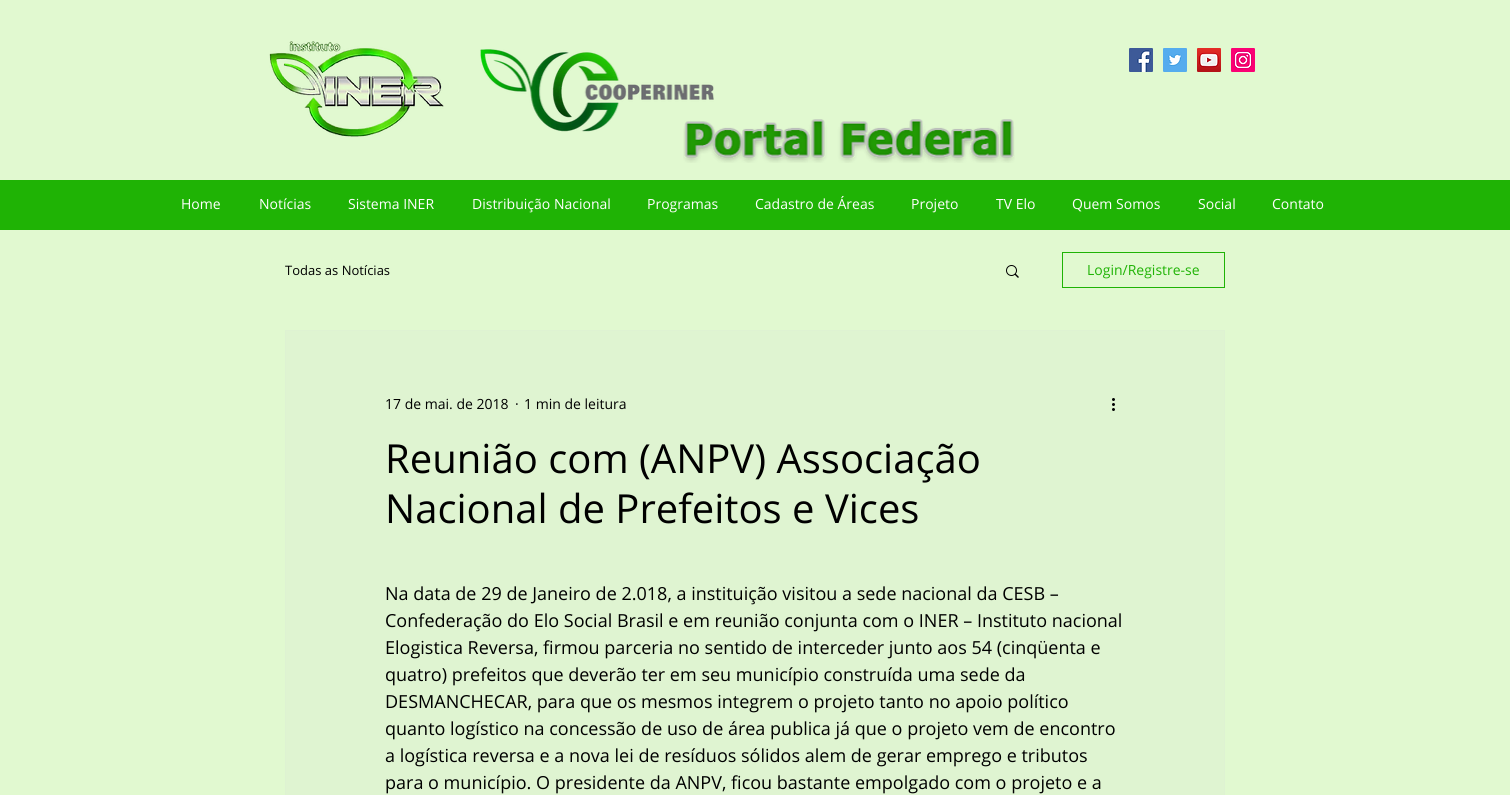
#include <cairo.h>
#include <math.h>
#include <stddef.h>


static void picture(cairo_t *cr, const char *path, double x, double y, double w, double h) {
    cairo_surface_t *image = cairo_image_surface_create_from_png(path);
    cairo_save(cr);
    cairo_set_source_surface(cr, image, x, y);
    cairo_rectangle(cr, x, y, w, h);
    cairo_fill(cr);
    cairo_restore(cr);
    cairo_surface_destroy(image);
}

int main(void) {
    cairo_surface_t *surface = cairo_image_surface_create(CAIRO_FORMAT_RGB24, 1510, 795);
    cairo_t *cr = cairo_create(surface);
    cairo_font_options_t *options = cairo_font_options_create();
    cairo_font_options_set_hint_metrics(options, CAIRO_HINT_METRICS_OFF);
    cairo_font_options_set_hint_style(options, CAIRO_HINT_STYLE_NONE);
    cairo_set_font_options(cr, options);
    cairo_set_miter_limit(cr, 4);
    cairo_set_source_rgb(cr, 0.882, 0.976, 0.816);
    cairo_paint(cr);
    picture(cr, "img1.png", 269, 41, 175, 96);
    picture(cr, "img2.png", 480, 49, 234, 83);
    picture(cr, "img3.png", 1129, 48, 24, 24);
    picture(cr, "img4.png", 1163, 48, 24, 24);
    picture(cr, "img5.png", 1197, 48, 24, 24);
    picture(cr, "img6.png", 1231, 48, 24, 24);
    cairo_set_source_rgb(cr, 0.122, 0.702, 0.02);
    cairo_rectangle(cr, 0, 180, 1510, 50);
    cairo_fill(cr);
    cairo_select_font_face(cr, "Open Sans", CAIRO_FONT_SLANT_NORMAL, CAIRO_FONT_WEIGHT_NORMAL);
    cairo_set_font_size(cr, 14);
    cairo_set_source_rgb(cr, 1, 1, 1);
    cairo_move_to(cr, 181, 209);
    cairo_show_text(cr, "Home");
    cairo_move_to(cr, 259, 209);
    cairo_show_text(cr, "Notícias");
    cairo_move_to(cr, 348, 209);
    cairo_show_text(cr, "Sistema INER");
    cairo_move_to(cr, 472, 209);
    cairo_show_text(cr, "Distribuição Nacional");
    cairo_move_to(cr, 647, 209);
    cairo_show_text(cr, "Programas");
    cairo_move_to(cr, 755, 209);
    cairo_show_text(cr, "Cadastro de Áreas");
    cairo_move_to(cr, 911, 209);
    cairo_show_text(cr, "Projeto");
    cairo_move_to(cr, 996, 209);
    cairo_show_text(cr, "TV Elo");
    cairo_move_to(cr, 1072, 209);
    cairo_show_text(cr, "Quem Somos");
    cairo_move_to(cr, 1198, 209);
    cairo_show_text(cr, "Social");
    cairo_move_to(cr, 1272, 209);
    cairo_show_text(cr, "Contato");
    picture(cr, "img7.png", 683, 119, 332, 44);
    cairo_set_font_size(cr, 13);
    cairo_set_source_rgb(cr, 0, 0, 0);
    cairo_move_to(cr, 285, 275);
    cairo_show_text(cr, "Todas as Notícias");
    picture(cr, "img8.png", 1006, 265, 13, 13);
    cairo_rectangle(cr, 1062.5, 252.5, 162, 35);
    cairo_set_source_rgb(cr, 0.122, 0.702, 0.02);
    cairo_set_line_width(cr, 1);
    cairo_stroke(cr);
    cairo_set_font_size(cr, 14);
    cairo_move_to(cr, 1087, 275);
    cairo_show_text(cr, "Login/Registre-se");
    cairo_set_source_rgb(cr, 0.875, 0.957, 0.82);
    cairo_rectangle(cr, 285.5, 330.5, 939, 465);
    cairo_fill_preserve(cr);
    cairo_set_source_rgb(cr, 0.871, 0.949, 0.824);
    cairo_stroke(cr);
    cairo_set_source_rgb(cr, 0, 0, 0);
    cairo_move_to(cr, 385, 409);
    cairo_show_text(cr, "17 de mai. de 2018");
    cairo_move_to(cr, 515, 409);
    cairo_show_text(cr, "·");
    cairo_move_to(cr, 524, 409);
    cairo_show_text(cr, "1 min de leitura");
    picture(cr, "img9.png", 1112, 398, 3, 13);
    cairo_set_font_size(cr, 40);
    cairo_move_to(cr, 385, 473);
    cairo_show_text(cr, "Reunião com (ANPV) Associação");
    cairo_move_to(cr, 385, 523);
    cairo_show_text(cr, "Nacional de Prefeitos e Vices");
    cairo_set_font_size(cr, 18);
    cairo_move_to(cr, 385, 600);
    cairo_show_text(cr, "Na data de 29 de Janeiro de 2.018, a instituição visitou a sede nacional da CESB –");
    cairo_move_to(cr, 385, 627);
    cairo_show_text(cr, "Confederação do Elo Social Brasil e em reunião conjunta com o INER – Instituto nacional");
    cairo_move_to(cr, 385, 654);
    cairo_show_text(cr, "Elogistica Reversa, firmou parceria no sentido de interceder junto aos 54 (cinqüenta e");
    cairo_move_to(cr, 385, 681);
    cairo_show_text(cr, "quatro) prefeitos que deverão ter em seu município construída uma sede da");
    cairo_move_to(cr, 385, 708);
    cairo_show_text(cr, "DESMANCHECAR, para que os mesmos integrem o projeto tanto no apoio político");
    cairo_move_to(cr, 385, 735);
    cairo_show_text(cr, "quanto logístico na concessão de uso de área publica já que o projeto vem de encontro");
    cairo_move_to(cr, 385, 762);
    cairo_show_text(cr, "a logística reversa e a nova lei de resíduos sólidos alem de gerar emprego e tributos");
    cairo_move_to(cr, 385, 789);
    cairo_show_text(cr, "para o município. O presidente da ANPV, ficou bastante empolgado com o projeto e a");
    cairo_surface_write_to_png(surface, "page.png");
    cairo_font_options_destroy(options);
    cairo_destroy(cr);
    cairo_surface_destroy(surface);
    return 0;
}
